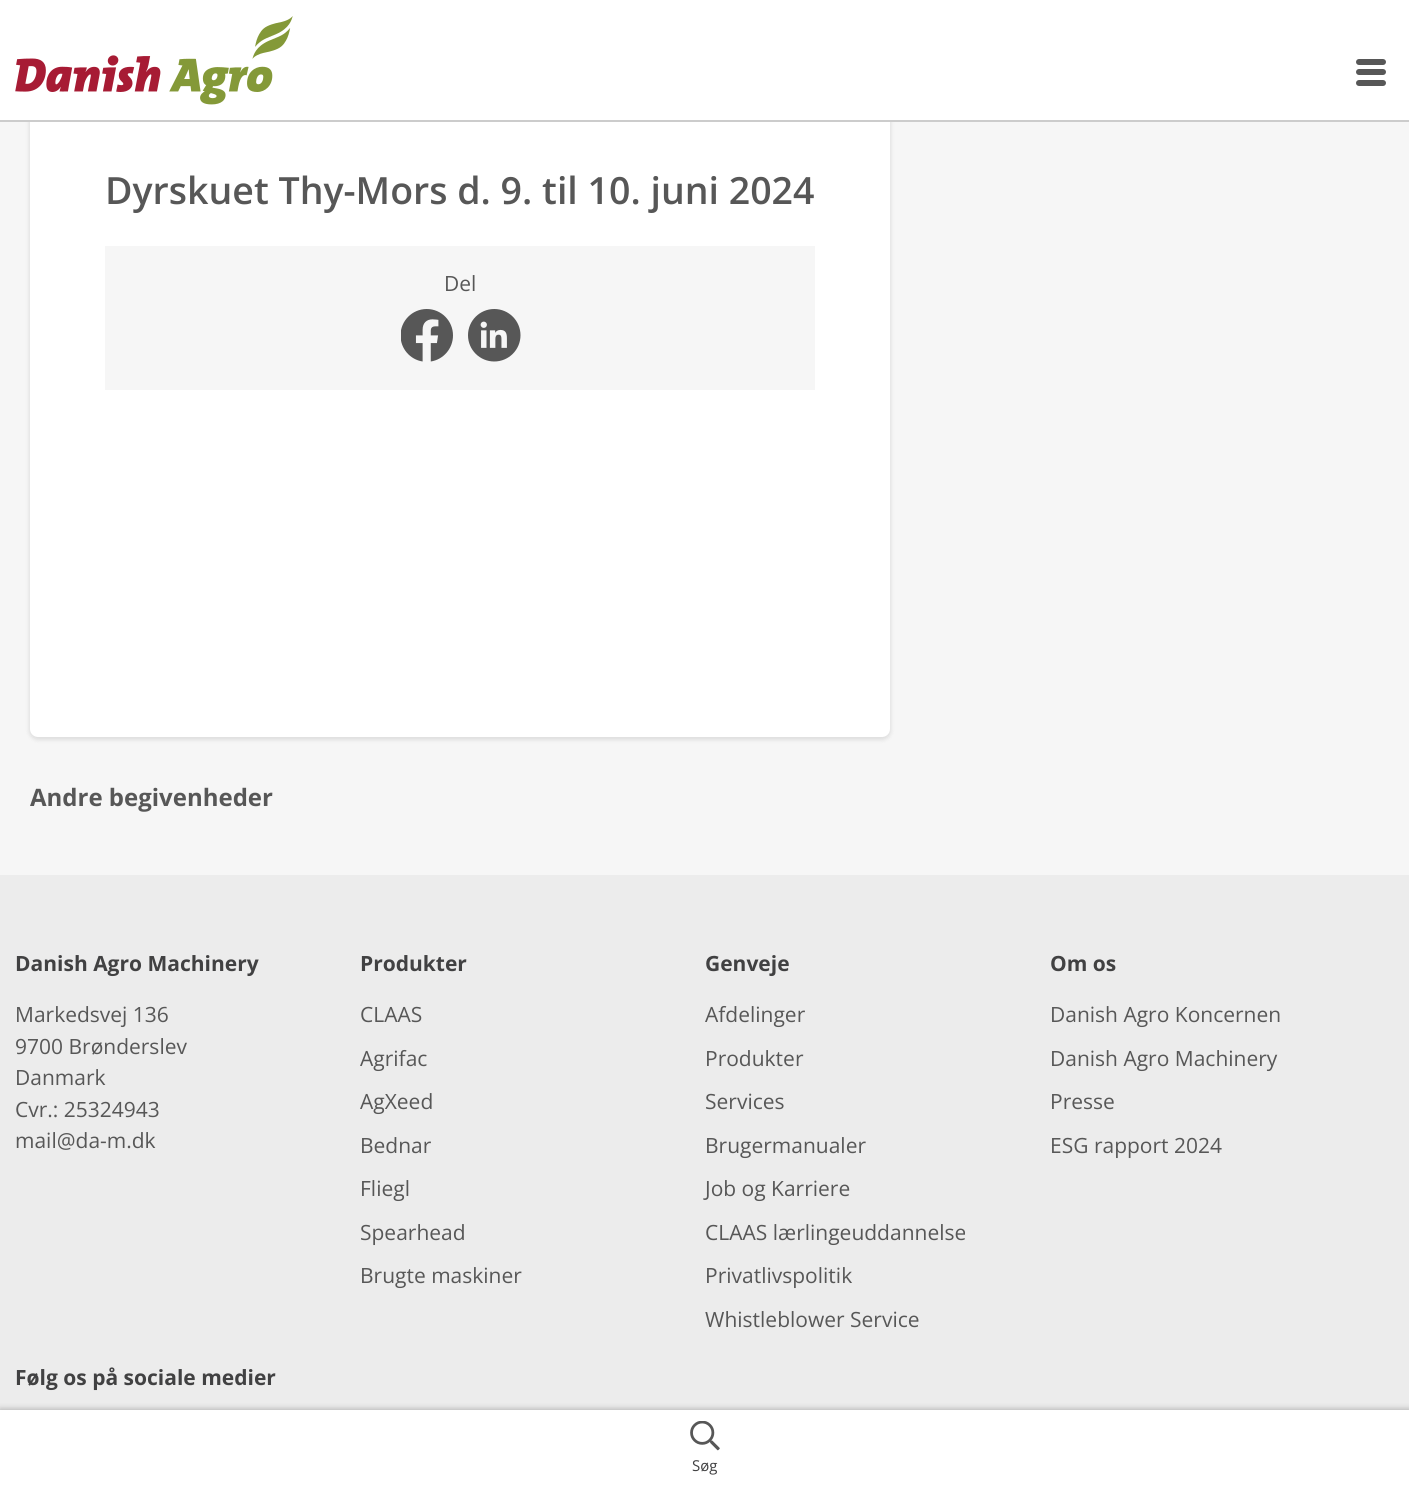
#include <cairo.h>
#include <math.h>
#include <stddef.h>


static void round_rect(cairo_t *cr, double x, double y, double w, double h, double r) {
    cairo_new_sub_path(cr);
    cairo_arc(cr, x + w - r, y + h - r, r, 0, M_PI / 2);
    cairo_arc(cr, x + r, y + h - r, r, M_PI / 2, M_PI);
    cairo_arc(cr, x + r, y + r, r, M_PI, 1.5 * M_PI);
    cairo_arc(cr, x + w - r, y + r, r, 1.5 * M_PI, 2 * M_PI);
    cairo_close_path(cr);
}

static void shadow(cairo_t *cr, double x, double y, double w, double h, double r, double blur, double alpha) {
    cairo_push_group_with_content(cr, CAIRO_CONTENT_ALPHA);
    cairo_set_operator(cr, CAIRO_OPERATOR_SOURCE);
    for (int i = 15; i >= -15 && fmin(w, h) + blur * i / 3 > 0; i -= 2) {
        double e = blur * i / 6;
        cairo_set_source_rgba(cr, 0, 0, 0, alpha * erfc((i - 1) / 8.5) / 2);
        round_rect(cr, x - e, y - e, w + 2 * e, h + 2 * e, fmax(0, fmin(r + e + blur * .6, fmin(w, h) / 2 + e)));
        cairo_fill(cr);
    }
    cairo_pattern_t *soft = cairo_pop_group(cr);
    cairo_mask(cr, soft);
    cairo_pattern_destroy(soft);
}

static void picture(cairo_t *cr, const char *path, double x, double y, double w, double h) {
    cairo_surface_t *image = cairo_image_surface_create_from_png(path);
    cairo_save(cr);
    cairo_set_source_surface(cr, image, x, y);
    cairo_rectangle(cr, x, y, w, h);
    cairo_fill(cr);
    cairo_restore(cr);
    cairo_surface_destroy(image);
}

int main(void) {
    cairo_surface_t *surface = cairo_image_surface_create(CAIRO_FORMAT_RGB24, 1409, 1485);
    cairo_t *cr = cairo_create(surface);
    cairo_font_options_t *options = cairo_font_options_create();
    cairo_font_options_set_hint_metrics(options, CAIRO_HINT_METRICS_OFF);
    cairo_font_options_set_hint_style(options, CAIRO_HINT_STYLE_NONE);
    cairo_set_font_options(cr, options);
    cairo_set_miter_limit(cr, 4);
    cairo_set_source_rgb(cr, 0.961, 0.961, 0.961);
    cairo_paint(cr);
    cairo_set_source_rgb(cr, 0, 0, 0);
    shadow(cr, 29, 17, 862, 723, 9, 2, 0.1);
    cairo_set_source_rgb(cr, 1, 1, 1);
    round_rect(cr, 30, 17, 860, 720, 8);
    cairo_fill(cr);
    cairo_rectangle(cr, 0, 0, 1409, 120);
    cairo_fill(cr);
    cairo_set_source_rgb(cr, 0.8, 0.8, 0.8);
    cairo_rectangle(cr, 0, 120, 1409, 2);
    cairo_fill(cr);
    picture(cr, "img1.png", 15, 16, 278, 89);
    cairo_set_source_rgb(cr, 0.341, 0.341, 0.341);
    round_rect(cr, 1356, 59, 30, 6, 3);
    cairo_fill(cr);
    round_rect(cr, 1356, 69, 30, 6, 3);
    cairo_fill(cr);
    round_rect(cr, 1356, 80, 30, 6, 3);
    cairo_fill(cr);
    cairo_select_font_face(cr, "Open Sans SemiBold", CAIRO_FONT_SLANT_NORMAL, CAIRO_FONT_WEIGHT_NORMAL);
    cairo_set_font_size(cr, 37.5);
    cairo_move_to(cr, 105, 204);
    cairo_show_text(cr, "Dyrskuet Thy-Mors d. 9. til 10. juni 2024");
    cairo_set_source_rgb(cr, 0.961, 0.961, 0.961);
    cairo_rectangle(cr, 105, 246, 710, 144);
    cairo_fill(cr);
    cairo_select_font_face(cr, "Open Sans", CAIRO_FONT_SLANT_NORMAL, CAIRO_FONT_WEIGHT_NORMAL);
    cairo_set_font_size(cr, 21);
    cairo_set_source_rgb(cr, 0.341, 0.341, 0.341);
    cairo_move_to(cr, 444, 291);
    cairo_show_text(cr, "Del");
    picture(cr, "img2.png", 401, 309, 52, 53);
    picture(cr, "img3.png", 468, 309, 53, 53);
    cairo_select_font_face(cr, "Open Sans", CAIRO_FONT_SLANT_NORMAL, CAIRO_FONT_WEIGHT_BOLD);
    cairo_set_font_size(cr, 24);
    cairo_move_to(cr, 30, 806);
    cairo_show_text(cr, "Andre begivenheder");
    cairo_set_source_rgb(cr, 0.922, 0.922, 0.922);
    cairo_rectangle(cr, 0, 875, 1409, 535);
    cairo_fill(cr);
    cairo_set_font_size(cr, 21);
    cairo_set_source_rgb(cr, 0.255, 0.255, 0.259);
    cairo_move_to(cr, 15, 971);
    cairo_show_text(cr, "Danish Agro Machinery");
    cairo_select_font_face(cr, "Open Sans", CAIRO_FONT_SLANT_NORMAL, CAIRO_FONT_WEIGHT_NORMAL);
    cairo_set_source_rgb(cr, 0.341, 0.341, 0.341);
    cairo_move_to(cr, 15, 1022);
    cairo_show_text(cr, "Markedsvej 136");
    cairo_move_to(cr, 15, 1054);
    cairo_show_text(cr, "9700 Brønderslev");
    cairo_move_to(cr, 15, 1085);
    cairo_show_text(cr, "Danmark");
    cairo_move_to(cr, 15, 1117);
    cairo_show_text(cr, "Cvr.: 25324943");
    cairo_move_to(cr, 15, 1148);
    cairo_show_text(cr, "mail@da-m.dk");
    cairo_select_font_face(cr, "Open Sans", CAIRO_FONT_SLANT_NORMAL, CAIRO_FONT_WEIGHT_BOLD);
    cairo_set_source_rgb(cr, 0.255, 0.255, 0.259);
    cairo_move_to(cr, 360, 971);
    cairo_show_text(cr, "Produkter");
    cairo_select_font_face(cr, "Open Sans", CAIRO_FONT_SLANT_NORMAL, CAIRO_FONT_WEIGHT_NORMAL);
    cairo_set_source_rgb(cr, 0.341, 0.341, 0.341);
    cairo_move_to(cr, 360, 1022);
    cairo_show_text(cr, "CLAAS");
    cairo_move_to(cr, 360, 1066);
    cairo_show_text(cr, "Agrifac");
    cairo_move_to(cr, 360, 1109);
    cairo_show_text(cr, "AgXeed");
    cairo_move_to(cr, 360, 1153);
    cairo_show_text(cr, "Bednar");
    cairo_move_to(cr, 360, 1196);
    cairo_show_text(cr, "Fliegl");
    cairo_move_to(cr, 360, 1240);
    cairo_show_text(cr, "Spearhead");
    cairo_move_to(cr, 360, 1283);
    cairo_show_text(cr, "Brugte maskiner");
    cairo_select_font_face(cr, "Open Sans", CAIRO_FONT_SLANT_NORMAL, CAIRO_FONT_WEIGHT_BOLD);
    cairo_set_source_rgb(cr, 0.255, 0.255, 0.259);
    cairo_move_to(cr, 705, 971);
    cairo_show_text(cr, "Genveje");
    cairo_select_font_face(cr, "Open Sans", CAIRO_FONT_SLANT_NORMAL, CAIRO_FONT_WEIGHT_NORMAL);
    cairo_set_source_rgb(cr, 0.341, 0.341, 0.341);
    cairo_move_to(cr, 705, 1022);
    cairo_show_text(cr, "Afdelinger");
    cairo_move_to(cr, 705, 1066);
    cairo_show_text(cr, "Produkter");
    cairo_move_to(cr, 705, 1109);
    cairo_show_text(cr, "Services");
    cairo_move_to(cr, 705, 1153);
    cairo_show_text(cr, "Brugermanualer");
    cairo_move_to(cr, 705, 1196);
    cairo_show_text(cr, "Job og Karriere");
    cairo_move_to(cr, 705, 1240);
    cairo_show_text(cr, "CLAAS lærlingeuddannelse");
    cairo_move_to(cr, 705, 1283);
    cairo_show_text(cr, "Privatlivspolitik");
    cairo_move_to(cr, 705, 1327);
    cairo_show_text(cr, "Whistleblower Service");
    cairo_select_font_face(cr, "Open Sans", CAIRO_FONT_SLANT_NORMAL, CAIRO_FONT_WEIGHT_BOLD);
    cairo_set_source_rgb(cr, 0.255, 0.255, 0.259);
    cairo_move_to(cr, 1050, 971);
    cairo_show_text(cr, "Om os");
    cairo_select_font_face(cr, "Open Sans", CAIRO_FONT_SLANT_NORMAL, CAIRO_FONT_WEIGHT_NORMAL);
    cairo_set_source_rgb(cr, 0.341, 0.341, 0.341);
    cairo_move_to(cr, 1050, 1022);
    cairo_show_text(cr, "Danish Agro Koncernen");
    cairo_move_to(cr, 1050, 1066);
    cairo_show_text(cr, "Danish Agro Machinery");
    cairo_move_to(cr, 1050, 1109);
    cairo_show_text(cr, "Presse");
    cairo_move_to(cr, 1050, 1153);
    cairo_show_text(cr, "ESG rapport 2024");
    cairo_select_font_face(cr, "Open Sans", CAIRO_FONT_SLANT_NORMAL, CAIRO_FONT_WEIGHT_BOLD);
    cairo_set_source_rgb(cr, 0.255, 0.255, 0.259);
    cairo_move_to(cr, 15, 1385);
    cairo_show_text(cr, "Følg os på sociale medier");
    cairo_set_source_rgb(cr, 0, 0, 0);
    shadow(cr, 0, 1409, 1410, 75, 0, 3, 0.25);
    cairo_set_source_rgb(cr, 1, 1, 1);
    cairo_rectangle(cr, 0, 1410, 1409, 75);
    cairo_fill(cr);
    picture(cr, "img4.png", 690, 1421, 30, 30);
    cairo_select_font_face(cr, "Open Sans", CAIRO_FONT_SLANT_NORMAL, CAIRO_FONT_WEIGHT_NORMAL);
    cairo_set_font_size(cr, 15);
    cairo_set_source_rgb(cr, 0.255, 0.255, 0.259);
    cairo_move_to(cr, 692, 1471);
    cairo_show_text(cr, "Søg");
    cairo_surface_write_to_png(surface, "page.png");
    cairo_font_options_destroy(options);
    cairo_destroy(cr);
    cairo_surface_destroy(surface);
    return 0;
}
